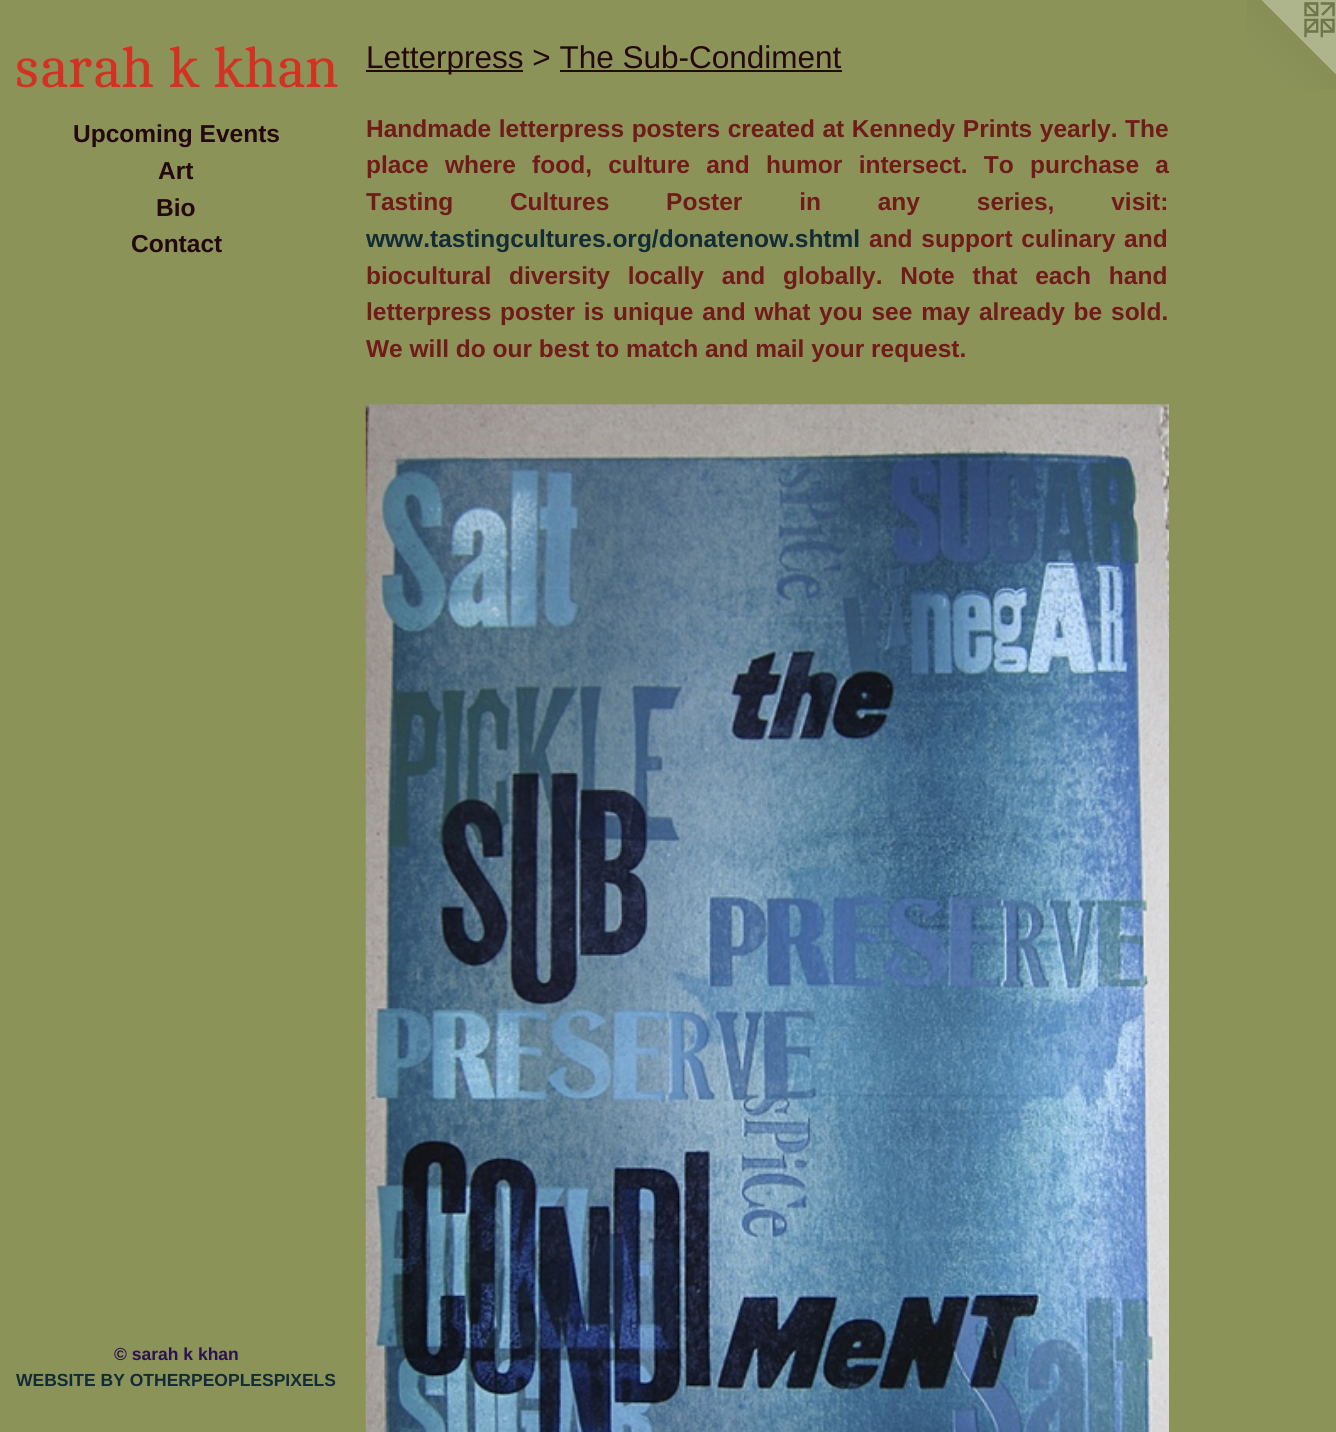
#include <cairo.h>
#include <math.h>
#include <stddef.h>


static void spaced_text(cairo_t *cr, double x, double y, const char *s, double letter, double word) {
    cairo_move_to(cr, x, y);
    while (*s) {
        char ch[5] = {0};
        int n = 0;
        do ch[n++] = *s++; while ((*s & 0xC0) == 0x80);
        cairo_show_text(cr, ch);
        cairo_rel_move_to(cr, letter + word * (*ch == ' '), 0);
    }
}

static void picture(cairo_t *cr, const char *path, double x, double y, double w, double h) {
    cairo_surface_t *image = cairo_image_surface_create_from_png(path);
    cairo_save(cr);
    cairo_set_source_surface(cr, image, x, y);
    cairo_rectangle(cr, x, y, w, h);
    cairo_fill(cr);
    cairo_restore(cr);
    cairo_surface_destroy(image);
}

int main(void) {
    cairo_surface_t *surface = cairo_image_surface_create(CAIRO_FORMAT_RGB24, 1336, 1432);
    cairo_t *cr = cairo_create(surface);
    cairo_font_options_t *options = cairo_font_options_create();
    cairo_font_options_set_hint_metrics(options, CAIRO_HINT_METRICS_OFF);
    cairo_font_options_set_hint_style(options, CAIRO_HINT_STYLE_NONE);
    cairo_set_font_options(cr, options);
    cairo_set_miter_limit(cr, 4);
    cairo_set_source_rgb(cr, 0.545, 0.576, 0.349);
    cairo_paint(cr);
    cairo_select_font_face(cr, "Cambo", CAIRO_FONT_SLANT_NORMAL, CAIRO_FONT_WEIGHT_NORMAL);
    cairo_set_font_size(cr, 56);
    cairo_set_source_rgb(cr, 0.827, 0.192, 0.133);
    cairo_move_to(cr, 14, 87);
    cairo_show_text(cr, "sarah k khan");
    cairo_select_font_face(cr, "Arimo", CAIRO_FONT_SLANT_NORMAL, CAIRO_FONT_WEIGHT_BOLD);
    cairo_set_font_size(cr, 24.5);
    cairo_set_source_rgb(cr, 0.141, 0.035, 0.051);
    cairo_move_to(cr, 73, 142);
    cairo_show_text(cr, "Upcoming Events");
    cairo_move_to(cr, 158, 179);
    cairo_show_text(cr, "Art");
    cairo_move_to(cr, 156, 216);
    cairo_show_text(cr, "Bio");
    cairo_move_to(cr, 131, 252);
    cairo_show_text(cr, "Contact");
    cairo_select_font_face(cr, "Liberation Sans", CAIRO_FONT_SLANT_NORMAL, CAIRO_FONT_WEIGHT_BOLD);
    cairo_set_font_size(cr, 17.5);
    cairo_set_source_rgb(cr, 0.161, 0.071, 0.31);
    cairo_move_to(cr, 114, 1360);
    cairo_show_text(cr, "© sarah k khan");
    cairo_set_source_rgb(cr, 0.067, 0.169, 0.216);
    cairo_move_to(cr, 16, 1386);
    cairo_show_text(cr, "WEBSITE BY OTHERPEOPLESPIXELS");
    cairo_set_source_rgb(cr, 0.141, 0.035, 0.051);
    cairo_rectangle(cr, 366, 70, 157, 2);
    cairo_fill(cr);
    cairo_select_font_face(cr, "Liberation Sans", CAIRO_FONT_SLANT_NORMAL, CAIRO_FONT_WEIGHT_NORMAL);
    cairo_set_font_size(cr, 31.5);
    cairo_move_to(cr, 366, 68);
    cairo_show_text(cr, "Letterpress > The Sub-Condiment");
    cairo_rectangle(cr, 560, 70, 282, 2);
    cairo_fill(cr);
    cairo_select_font_face(cr, "Liberation Sans", CAIRO_FONT_SLANT_NORMAL, CAIRO_FONT_WEIGHT_BOLD);
    cairo_set_font_size(cr, 24.5);
    cairo_set_source_rgb(cr, 0.439, 0.102, 0.102);
    spaced_text(cr, 366, 137, "Handmade letterpress posters created at Kennedy Prints yearly. The", 0, 0.75);
    spaced_text(cr, 366, 173, "place where food, culture and humor intersect. To purchase a", 0, 9.5);
    spaced_text(cr, 366, 210, "Tasting Cultures Poster in any series, visit:", 0, 50);
    cairo_set_source_rgb(cr, 0.067, 0.169, 0.216);
    cairo_move_to(cr, 366, 247);
    cairo_show_text(cr, "www.tastingcultures.org/donatenow.shtml");
    cairo_set_source_rgb(cr, 0.439, 0.102, 0.102);
    spaced_text(cr, 869, 247, "and support culinary and", 0, 2);
    spaced_text(cr, 366, 284, "biocultural diversity locally and globally. Note that each hand", 0, 11);
    spaced_text(cr, 366, 320, "letterpress poster is unique and what you see may already be sold.", 0, 2);
    cairo_move_to(cr, 366, 357);
    cairo_show_text(cr, "We will do our best to match and mail your request.");
    picture(cr, "img1.png", 365, 404, 804, 1028);
    picture(cr, "img2.png", 1247, 0, 89, 89);
    cairo_surface_write_to_png(surface, "page.png");
    cairo_font_options_destroy(options);
    cairo_destroy(cr);
    cairo_surface_destroy(surface);
    return 0;
}
